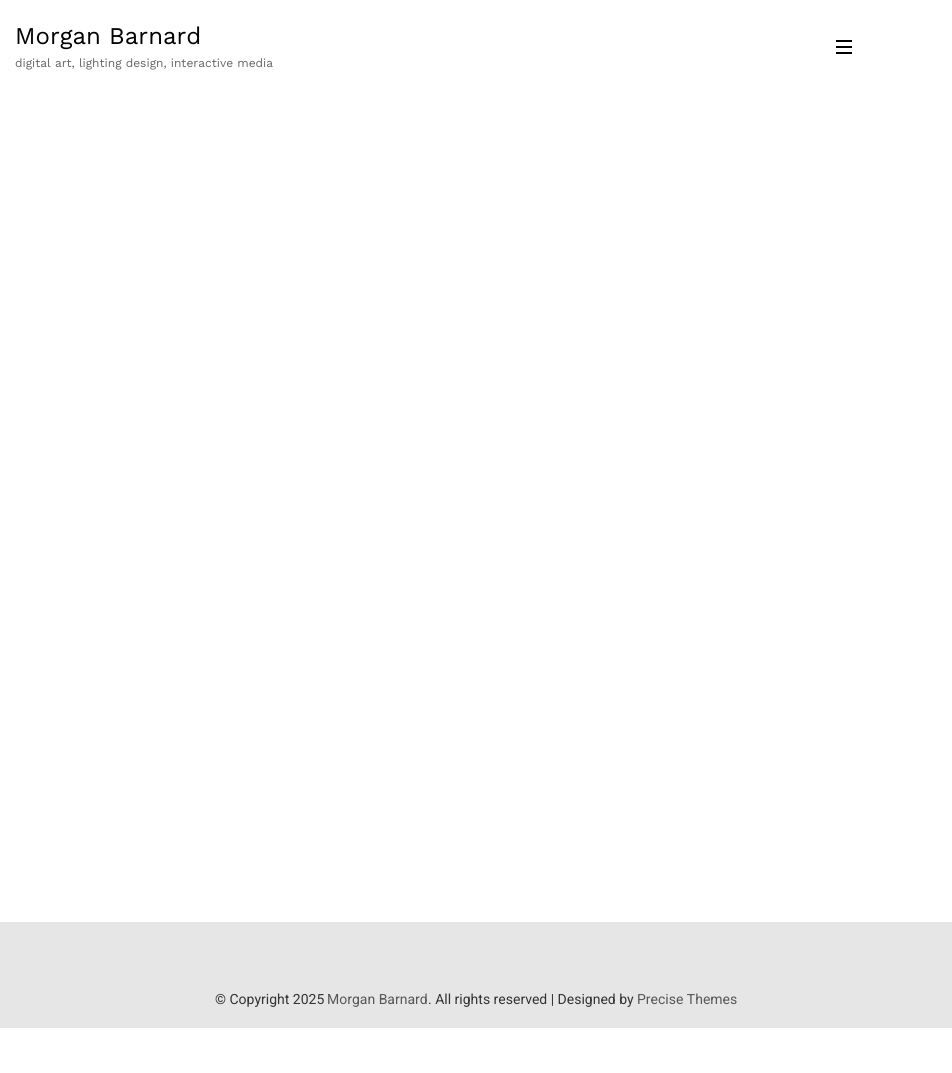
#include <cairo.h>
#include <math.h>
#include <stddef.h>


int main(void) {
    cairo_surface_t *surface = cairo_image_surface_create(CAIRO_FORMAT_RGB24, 952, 1073);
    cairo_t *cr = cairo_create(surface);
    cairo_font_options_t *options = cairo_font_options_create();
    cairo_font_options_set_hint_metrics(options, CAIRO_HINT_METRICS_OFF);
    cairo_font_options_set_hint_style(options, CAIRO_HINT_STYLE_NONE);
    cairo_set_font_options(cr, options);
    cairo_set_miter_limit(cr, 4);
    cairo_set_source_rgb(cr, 1, 1, 1);
    cairo_paint(cr);
    cairo_select_font_face(cr, "Work Sans", CAIRO_FONT_SLANT_NORMAL, CAIRO_FONT_WEIGHT_NORMAL);
    cairo_set_font_size(cr, 24);
    cairo_set_source_rgb(cr, 0, 0, 0);
    cairo_move_to(cr, 15, 44);
    cairo_show_text(cr, "Morgan Barnard");
    cairo_set_font_size(cr, 12);
    cairo_set_source_rgb(cr, 0.4, 0.4, 0.4);
    cairo_move_to(cr, 15, 67);
    cairo_show_text(cr, "digital art, lighting design, interactive media");
    cairo_set_source_rgb(cr, 0, 0, 0);
    cairo_rectangle(cr, 836, 40, 16, 2);
    cairo_fill(cr);
    cairo_rectangle(cr, 836, 46, 16, 2);
    cairo_fill(cr);
    cairo_rectangle(cr, 836, 52, 16, 2);
    cairo_fill(cr);
    cairo_set_source_rgb(cr, 0.902, 0.902, 0.902);
    cairo_rectangle(cr, 0, 922, 952, 106);
    cairo_fill(cr);
    cairo_select_font_face(cr, "Roboto", CAIRO_FONT_SLANT_NORMAL, CAIRO_FONT_WEIGHT_NORMAL);
    cairo_set_font_size(cr, 14);
    cairo_set_source_rgb(cr, 0.2, 0.2, 0.2);
    cairo_move_to(cr, 215, 1004);
    cairo_show_text(cr, "© Copyright 2025");
    cairo_set_source_rgb(cr, 0.341, 0.341, 0.341);
    cairo_move_to(cr, 327, 1004);
    cairo_show_text(cr, "Morgan Barnard");
    cairo_set_source_rgb(cr, 0.2, 0.2, 0.2);
    cairo_move_to(cr, 428, 1004);
    cairo_show_text(cr, ". All rights reserved | Designed by");
    cairo_set_source_rgb(cr, 0.341, 0.341, 0.341);
    cairo_move_to(cr, 637, 1004);
    cairo_show_text(cr, "Precise Themes");
    cairo_surface_write_to_png(surface, "page.png");
    cairo_font_options_destroy(options);
    cairo_destroy(cr);
    cairo_surface_destroy(surface);
    return 0;
}
